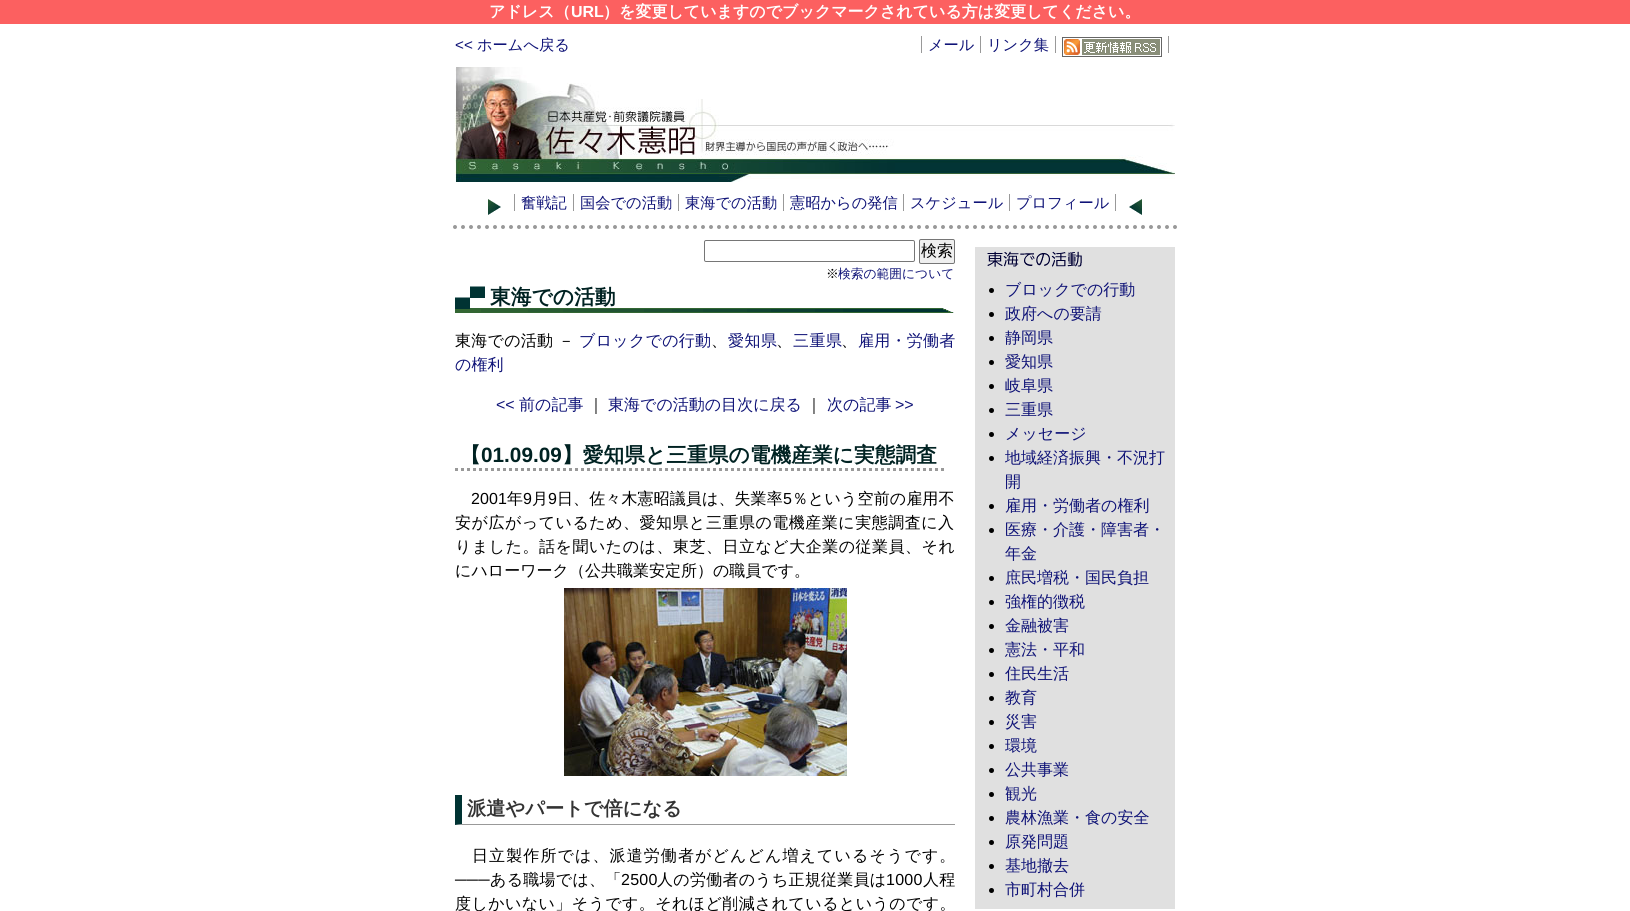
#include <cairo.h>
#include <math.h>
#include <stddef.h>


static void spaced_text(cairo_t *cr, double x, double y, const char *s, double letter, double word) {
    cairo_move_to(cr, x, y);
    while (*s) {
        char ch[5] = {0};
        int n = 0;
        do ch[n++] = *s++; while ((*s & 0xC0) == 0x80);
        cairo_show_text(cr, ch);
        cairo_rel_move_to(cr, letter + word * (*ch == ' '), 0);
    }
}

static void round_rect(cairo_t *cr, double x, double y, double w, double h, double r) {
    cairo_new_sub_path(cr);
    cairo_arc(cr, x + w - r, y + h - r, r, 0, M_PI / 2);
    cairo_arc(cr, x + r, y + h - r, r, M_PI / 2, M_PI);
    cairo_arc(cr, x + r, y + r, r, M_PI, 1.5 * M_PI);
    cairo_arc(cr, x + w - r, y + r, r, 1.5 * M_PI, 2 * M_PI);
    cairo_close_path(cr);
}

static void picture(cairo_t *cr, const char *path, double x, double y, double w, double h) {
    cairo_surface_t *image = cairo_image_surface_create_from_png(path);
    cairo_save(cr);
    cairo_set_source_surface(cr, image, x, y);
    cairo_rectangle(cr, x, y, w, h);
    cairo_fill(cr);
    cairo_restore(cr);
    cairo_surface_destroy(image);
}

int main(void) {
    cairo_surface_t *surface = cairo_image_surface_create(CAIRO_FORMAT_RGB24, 1630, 911);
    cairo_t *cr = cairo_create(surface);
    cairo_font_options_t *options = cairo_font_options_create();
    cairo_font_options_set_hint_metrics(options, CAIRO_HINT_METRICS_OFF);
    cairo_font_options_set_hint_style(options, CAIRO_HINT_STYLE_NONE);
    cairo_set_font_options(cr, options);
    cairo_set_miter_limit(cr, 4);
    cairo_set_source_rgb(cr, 1, 1, 1);
    cairo_paint(cr);
    cairo_set_source_rgb(cr, 0.988, 0.376, 0.376);
    cairo_rectangle(cr, 0, 0, 1630, 24);
    cairo_fill(cr);
    cairo_select_font_face(cr, "WenQuanYi Zen Hei", CAIRO_FONT_SLANT_NORMAL, CAIRO_FONT_WEIGHT_BOLD);
    cairo_set_font_size(cr, 16);
    cairo_set_source_rgb(cr, 1, 1, 1);
    cairo_move_to(cr, 489, 17);
    cairo_show_text(cr, "アドレス（");
    cairo_select_font_face(cr, "Liberation Sans", CAIRO_FONT_SLANT_NORMAL, CAIRO_FONT_WEIGHT_BOLD);
    cairo_move_to(cr, 571, 17);
    cairo_show_text(cr, "URL");
    cairo_select_font_face(cr, "WenQuanYi Zen Hei", CAIRO_FONT_SLANT_NORMAL, CAIRO_FONT_WEIGHT_BOLD);
    cairo_move_to(cr, 603, 17);
    cairo_show_text(cr, "）を変更していますのでブックマークされている方は変更してください。");
    cairo_select_font_face(cr, "Liberation Sans", CAIRO_FONT_SLANT_NORMAL, CAIRO_FONT_WEIGHT_NORMAL);
    cairo_set_font_size(cr, 15.25);
    cairo_set_source_rgb(cr, 0.059, 0.078, 0.467);
    cairo_move_to(cr, 455, 50);
    cairo_show_text(cr, "<<");
    cairo_select_font_face(cr, "WenQuanYi Zen Hei Medium", CAIRO_FONT_SLANT_NORMAL, CAIRO_FONT_WEIGHT_NORMAL);
    cairo_move_to(cr, 477, 50);
    cairo_show_text(cr, "ホームへ戻る");
    cairo_move_to(cr, 928, 50);
    cairo_show_text(cr, "メール");
    cairo_set_source_rgb(cr, 0.6, 0.6, 0.6);
    cairo_rectangle(cr, 980, 36, 1, 17);
    cairo_fill(cr);
    cairo_rectangle(cr, 921, 36, 1, 17);
    cairo_fill(cr);
    cairo_set_source_rgb(cr, 0.059, 0.078, 0.467);
    cairo_move_to(cr, 987, 50);
    cairo_show_text(cr, "リンク集");
    cairo_set_source_rgb(cr, 0.6, 0.6, 0.6);
    cairo_rectangle(cr, 1055, 36, 1, 17);
    cairo_fill(cr);
    picture(cr, "img1.png", 1062, 37, 100, 20);
    cairo_rectangle(cr, 1168, 36, 1, 17);
    cairo_fill(cr);
    picture(cr, "img2.png", 455, 67, 720, 115);
    cairo_new_path(cr);
    cairo_move_to(cr, 455, 227);
    cairo_line_to(cr, 1175, 227);
    cairo_set_line_width(cr, 4);
    cairo_set_line_cap(cr, CAIRO_LINE_CAP_ROUND);
    cairo_set_dash(cr, (double[]){0, 8}, 2, 0);
    cairo_stroke(cr);
    picture(cr, "img3.png", 488, 199, 13, 16);
    cairo_set_source_rgb(cr, 0.059, 0.078, 0.467);
    cairo_move_to(cr, 521, 208);
    cairo_show_text(cr, "奮戦記");
    cairo_set_source_rgb(cr, 0.6, 0.6, 0.6);
    cairo_rectangle(cr, 573, 194, 1, 17);
    cairo_fill(cr);
    cairo_rectangle(cr, 514, 194, 1, 17);
    cairo_fill(cr);
    cairo_set_source_rgb(cr, 0.059, 0.078, 0.467);
    cairo_move_to(cr, 580, 208);
    cairo_show_text(cr, "国会での活動");
    cairo_move_to(cr, 685, 208);
    cairo_show_text(cr, "東海での活動");
    cairo_set_source_rgb(cr, 0.6, 0.6, 0.6);
    cairo_rectangle(cr, 678, 194, 1, 17);
    cairo_fill(cr);
    cairo_set_source_rgb(cr, 0.059, 0.078, 0.467);
    cairo_move_to(cr, 790, 208);
    cairo_show_text(cr, "憲昭からの発信");
    cairo_set_source_rgb(cr, 0.6, 0.6, 0.6);
    cairo_rectangle(cr, 783, 194, 1, 17);
    cairo_fill(cr);
    cairo_rectangle(cr, 903, 194, 1, 17);
    cairo_fill(cr);
    cairo_set_source_rgb(cr, 0.059, 0.078, 0.467);
    cairo_move_to(cr, 910, 208);
    cairo_show_text(cr, "スケジュール");
    cairo_move_to(cr, 1016, 208);
    cairo_show_text(cr, "プロフィール");
    cairo_set_source_rgb(cr, 0.6, 0.6, 0.6);
    cairo_rectangle(cr, 1009, 194, 1, 17);
    cairo_fill(cr);
    cairo_rectangle(cr, 1115, 194, 1, 17);
    cairo_fill(cr);
    picture(cr, "img4.png", 1129, 199, 13, 16);
    round_rect(cr, 704.5, 240.5, 210, 21, 1.5);
    cairo_set_source_rgb(cr, 0.463, 0.463, 0.463);
    cairo_set_line_width(cr, 1);
    cairo_set_line_cap(cr, CAIRO_LINE_CAP_BUTT);
    cairo_set_dash(cr, NULL, 0, 0);
    cairo_stroke(cr);
    cairo_set_source_rgb(cr, 0.937, 0.937, 0.937);
    round_rect(cr, 919.5, 239.5, 35, 24, 1.5);
    cairo_fill_preserve(cr);
    cairo_set_source_rgb(cr, 0.463, 0.463, 0.463);
    cairo_stroke(cr);
    cairo_set_font_size(cr, 16);
    cairo_set_source_rgb(cr, 0, 0, 0);
    cairo_move_to(cr, 921, 256);
    cairo_show_text(cr, "検索");
    cairo_set_font_size(cr, 12.75);
    cairo_move_to(cr, 826, 278);
    cairo_show_text(cr, "※");
    cairo_set_source_rgb(cr, 0.059, 0.078, 0.467);
    cairo_move_to(cr, 838, 278);
    cairo_show_text(cr, "検索の範囲について");
    picture(cr, "img5.png", 455, 286, 499, 27);
    cairo_select_font_face(cr, "WenQuanYi Zen Hei", CAIRO_FONT_SLANT_NORMAL, CAIRO_FONT_WEIGHT_BOLD);
    cairo_set_font_size(cr, 20.75);
    cairo_set_source_rgb(cr, 0, 0.133, 0.133);
    cairo_move_to(cr, 490, 304);
    cairo_show_text(cr, "東海での活動");
    cairo_select_font_face(cr, "WenQuanYi Zen Hei Medium", CAIRO_FONT_SLANT_NORMAL, CAIRO_FONT_WEIGHT_NORMAL);
    cairo_set_font_size(cr, 16);
    cairo_set_source_rgb(cr, 0, 0, 0);
    spaced_text(cr, 455, 346, "東海での活動 －", 0.25, 0);
    cairo_set_source_rgb(cr, 0.059, 0.078, 0.467);
    spaced_text(cr, 579, 346, "ブロックでの行動", 0.25, 0);
    cairo_set_source_rgb(cr, 0, 0, 0);
    cairo_move_to(cr, 711, 346);
    cairo_show_text(cr, "、");
    cairo_set_source_rgb(cr, 0.059, 0.078, 0.467);
    spaced_text(cr, 728, 346, "愛知県", 0.5, 0);
    cairo_set_source_rgb(cr, 0, 0, 0);
    cairo_move_to(cr, 776, 346);
    cairo_show_text(cr, "、");
    cairo_set_source_rgb(cr, 0.059, 0.078, 0.467);
    spaced_text(cr, 793, 346, "三重県", 0.5, 0);
    cairo_set_source_rgb(cr, 0, 0, 0);
    cairo_move_to(cr, 841, 346);
    cairo_show_text(cr, "、");
    cairo_set_source_rgb(cr, 0.059, 0.078, 0.467);
    spaced_text(cr, 858, 346, "雇用・労働者", 0.25, 0);
    cairo_move_to(cr, 455, 370);
    cairo_show_text(cr, "の権利");
    cairo_select_font_face(cr, "Liberation Sans", CAIRO_FONT_SLANT_NORMAL, CAIRO_FONT_WEIGHT_NORMAL);
    cairo_move_to(cr, 496, 410);
    cairo_show_text(cr, "<<");
    cairo_select_font_face(cr, "WenQuanYi Zen Hei Medium", CAIRO_FONT_SLANT_NORMAL, CAIRO_FONT_WEIGHT_NORMAL);
    cairo_move_to(cr, 519, 410);
    cairo_show_text(cr, "前の記事");
    cairo_set_source_rgb(cr, 0, 0, 0);
    cairo_move_to(cr, 588, 410);
    cairo_show_text(cr, "｜");
    cairo_set_source_rgb(cr, 0.059, 0.078, 0.467);
    cairo_move_to(cr, 608, 410);
    cairo_show_text(cr, "東海での活動の目次に戻る");
    cairo_set_source_rgb(cr, 0, 0, 0);
    cairo_move_to(cr, 806, 410);
    cairo_show_text(cr, "｜");
    cairo_set_source_rgb(cr, 0.059, 0.078, 0.467);
    cairo_move_to(cr, 827, 410);
    cairo_show_text(cr, "次の記事");
    cairo_select_font_face(cr, "Liberation Sans", CAIRO_FONT_SLANT_NORMAL, CAIRO_FONT_WEIGHT_NORMAL);
    cairo_move_to(cr, 895, 410);
    cairo_show_text(cr, ">>");
    cairo_new_path(cr);
    cairo_move_to(cr, 455, 469.5);
    cairo_line_to(cr, 945, 469.5);
    cairo_set_source_rgb(cr, 0.6, 0.6, 0.6);
    cairo_set_line_width(cr, 3);
    cairo_set_dash(cr, (double[]){3, 3}, 2, 0);
    cairo_stroke(cr);
    cairo_select_font_face(cr, "WenQuanYi Zen Hei", CAIRO_FONT_SLANT_NORMAL, CAIRO_FONT_WEIGHT_BOLD);
    cairo_set_font_size(cr, 20.75);
    cairo_set_source_rgb(cr, 0, 0.133, 0.133);
    cairo_move_to(cr, 460, 462);
    cairo_show_text(cr, "【");
    cairo_select_font_face(cr, "Liberation Sans", CAIRO_FONT_SLANT_NORMAL, CAIRO_FONT_WEIGHT_BOLD);
    cairo_move_to(cr, 481, 462);
    cairo_show_text(cr, "01.09.09");
    cairo_select_font_face(cr, "WenQuanYi Zen Hei", CAIRO_FONT_SLANT_NORMAL, CAIRO_FONT_WEIGHT_BOLD);
    cairo_move_to(cr, 562, 462);
    cairo_show_text(cr, "】愛知県と三重県の電機産業に実態調査");
    cairo_select_font_face(cr, "Liberation Sans", CAIRO_FONT_SLANT_NORMAL, CAIRO_FONT_WEIGHT_NORMAL);
    cairo_set_font_size(cr, 16);
    cairo_set_source_rgb(cr, 0, 0, 0);
    spaced_text(cr, 471, 504, "2001", 0.1, 0);
    cairo_select_font_face(cr, "WenQuanYi Zen Hei Medium", CAIRO_FONT_SLANT_NORMAL, CAIRO_FONT_WEIGHT_NORMAL);
    spaced_text(cr, 507, 504, "年", 0.1, 0);
    cairo_select_font_face(cr, "Liberation Sans", CAIRO_FONT_SLANT_NORMAL, CAIRO_FONT_WEIGHT_NORMAL);
    spaced_text(cr, 523, 504, "9", 0.1, 0);
    cairo_select_font_face(cr, "WenQuanYi Zen Hei Medium", CAIRO_FONT_SLANT_NORMAL, CAIRO_FONT_WEIGHT_NORMAL);
    spaced_text(cr, 532, 504, "月", 0.1, 0);
    cairo_select_font_face(cr, "Liberation Sans", CAIRO_FONT_SLANT_NORMAL, CAIRO_FONT_WEIGHT_NORMAL);
    spaced_text(cr, 548, 504, "9", 0.1, 0);
    cairo_select_font_face(cr, "WenQuanYi Zen Hei Medium", CAIRO_FONT_SLANT_NORMAL, CAIRO_FONT_WEIGHT_NORMAL);
    spaced_text(cr, 557, 504, "日、佐々木憲昭議員は、失業率", 0.1, 0);
    cairo_select_font_face(cr, "Liberation Sans", CAIRO_FONT_SLANT_NORMAL, CAIRO_FONT_WEIGHT_NORMAL);
    spaced_text(cr, 783, 504, "5", 0.1, 0);
    cairo_select_font_face(cr, "WenQuanYi Zen Hei Medium", CAIRO_FONT_SLANT_NORMAL, CAIRO_FONT_WEIGHT_NORMAL);
    spaced_text(cr, 792, 504, "％という空前の雇用不", 0.1, 0);
    spaced_text(cr, 455, 528, "安が広がっているため、愛知県と三重県の電機産業に実態調査に入", 0.5, 0);
    spaced_text(cr, 455, 552, "りました。話を聞いたのは、東芝、日立など大企業の従業員、それ", 0.5, 0);
    cairo_move_to(cr, 455, 576);
    cairo_show_text(cr, "にハローワーク（公共職業安定所）の職員です。");
    picture(cr, "img6.png", 564, 588, 283, 188);
    cairo_set_source_rgb(cr, 0.6, 0.6, 0.6);
    cairo_new_path(cr);
    cairo_move_to(cr, 955, 825);
    cairo_line_to(cr, 455, 825);
    cairo_line_to(cr, 462, 824);
    cairo_line_to(cr, 955, 824);
    cairo_close_path(cr);
    cairo_fill(cr);
    cairo_set_source_rgb(cr, 0, 0.2, 0.2);
    cairo_new_path(cr);
    cairo_move_to(cr, 455, 825);
    cairo_line_to(cr, 455, 795);
    cairo_line_to(cr, 462, 795);
    cairo_line_to(cr, 462, 824);
    cairo_close_path(cr);
    cairo_fill(cr);
    cairo_select_font_face(cr, "WenQuanYi Zen Hei", CAIRO_FONT_SLANT_NORMAL, CAIRO_FONT_WEIGHT_BOLD);
    cairo_set_font_size(cr, 19.25);
    cairo_set_source_rgb(cr, 0.2, 0.2, 0.2);
    cairo_move_to(cr, 467, 815);
    cairo_show_text(cr, "派遣やパートで倍になる");
    cairo_select_font_face(cr, "WenQuanYi Zen Hei Medium", CAIRO_FONT_SLANT_NORMAL, CAIRO_FONT_WEIGHT_NORMAL);
    cairo_set_font_size(cr, 16);
    cairo_set_source_rgb(cr, 0, 0, 0);
    spaced_text(cr, 472, 861, "日立製作所では、派遣労働者がどんどん増えているそうです。", 1.1, 0);
    cairo_select_font_face(cr, "Liberation Sans", CAIRO_FONT_SLANT_NORMAL, CAIRO_FONT_WEIGHT_NORMAL);
    spaced_text(cr, 455, 885, "───", 0.25, 0);
    cairo_select_font_face(cr, "WenQuanYi Zen Hei Medium", CAIRO_FONT_SLANT_NORMAL, CAIRO_FONT_WEIGHT_NORMAL);
    spaced_text(cr, 490, 885, "ある職場では、「", 0.25, 0);
    cairo_select_font_face(cr, "Liberation Sans", CAIRO_FONT_SLANT_NORMAL, CAIRO_FONT_WEIGHT_NORMAL);
    spaced_text(cr, 621, 885, "2500", 0.25, 0);
    cairo_select_font_face(cr, "WenQuanYi Zen Hei Medium", CAIRO_FONT_SLANT_NORMAL, CAIRO_FONT_WEIGHT_NORMAL);
    spaced_text(cr, 657, 885, "人の労働者のうち正規従業員は", 0.25, 0);
    cairo_select_font_face(cr, "Liberation Sans", CAIRO_FONT_SLANT_NORMAL, CAIRO_FONT_WEIGHT_NORMAL);
    spaced_text(cr, 886, 885, "1000", 0.25, 0);
    cairo_select_font_face(cr, "WenQuanYi Zen Hei Medium", CAIRO_FONT_SLANT_NORMAL, CAIRO_FONT_WEIGHT_NORMAL);
    spaced_text(cr, 923, 885, "人程", 0.25, 0);
    spaced_text(cr, 455, 909, "度しかいない」そうです。それほど削減されているというのです。", 0.4, 0);
    cairo_set_source_rgb(cr, 0.878, 0.878, 0.878);
    cairo_rectangle(cr, 975, 247, 200, 662);
    cairo_fill(cr);
    picture(cr, "img7.png", 987, 251, 95, 16);
    cairo_set_source_rgb(cr, 0, 0, 0);
    cairo_arc(cr, 991.5, 290.5, 2.5, 0, 2 * M_PI);
    cairo_fill(cr);
    cairo_set_source_rgb(cr, 0.059, 0.078, 0.467);
    cairo_move_to(cr, 1005, 295);
    cairo_show_text(cr, "ブロックでの行動");
    cairo_set_source_rgb(cr, 0, 0, 0);
    cairo_new_path(cr);
    cairo_arc(cr, 991.5, 314.5, 2.5, 0, 2 * M_PI);
    cairo_fill(cr);
    cairo_set_source_rgb(cr, 0.059, 0.078, 0.467);
    cairo_move_to(cr, 1005, 319);
    cairo_show_text(cr, "政府への要請");
    cairo_set_source_rgb(cr, 0, 0, 0);
    cairo_new_path(cr);
    cairo_arc(cr, 991.5, 338.5, 2.5, 0, 2 * M_PI);
    cairo_fill(cr);
    cairo_set_source_rgb(cr, 0.059, 0.078, 0.467);
    cairo_move_to(cr, 1005, 343);
    cairo_show_text(cr, "静岡県");
    cairo_set_source_rgb(cr, 0, 0, 0);
    cairo_new_path(cr);
    cairo_arc(cr, 991.5, 362.5, 2.5, 0, 2 * M_PI);
    cairo_fill(cr);
    cairo_set_source_rgb(cr, 0.059, 0.078, 0.467);
    cairo_move_to(cr, 1005, 367);
    cairo_show_text(cr, "愛知県");
    cairo_set_source_rgb(cr, 0, 0, 0);
    cairo_new_path(cr);
    cairo_arc(cr, 991.5, 386.5, 2.5, 0, 2 * M_PI);
    cairo_fill(cr);
    cairo_set_source_rgb(cr, 0.059, 0.078, 0.467);
    cairo_move_to(cr, 1005, 391);
    cairo_show_text(cr, "岐阜県");
    cairo_set_source_rgb(cr, 0, 0, 0);
    cairo_new_path(cr);
    cairo_arc(cr, 991.5, 410.5, 2.5, 0, 2 * M_PI);
    cairo_fill(cr);
    cairo_set_source_rgb(cr, 0.059, 0.078, 0.467);
    cairo_move_to(cr, 1005, 415);
    cairo_show_text(cr, "三重県");
    cairo_set_source_rgb(cr, 0, 0, 0);
    cairo_new_path(cr);
    cairo_arc(cr, 991.5, 434.5, 2.5, 0, 2 * M_PI);
    cairo_fill(cr);
    cairo_set_source_rgb(cr, 0.059, 0.078, 0.467);
    cairo_move_to(cr, 1005, 439);
    cairo_show_text(cr, "メッセージ");
    cairo_set_source_rgb(cr, 0, 0, 0);
    cairo_new_path(cr);
    cairo_arc(cr, 991.5, 458.5, 2.5, 0, 2 * M_PI);
    cairo_fill(cr);
    cairo_set_source_rgb(cr, 0.059, 0.078, 0.467);
    cairo_move_to(cr, 1005, 463);
    cairo_show_text(cr, "地域経済振興・不況打");
    cairo_move_to(cr, 1005, 487);
    cairo_show_text(cr, "開");
    cairo_set_source_rgb(cr, 0, 0, 0);
    cairo_new_path(cr);
    cairo_arc(cr, 991.5, 506.5, 2.5, 0, 2 * M_PI);
    cairo_fill(cr);
    cairo_set_source_rgb(cr, 0.059, 0.078, 0.467);
    cairo_move_to(cr, 1005, 511);
    cairo_show_text(cr, "雇用・労働者の権利");
    cairo_set_source_rgb(cr, 0, 0, 0);
    cairo_new_path(cr);
    cairo_arc(cr, 991.5, 530.5, 2.5, 0, 2 * M_PI);
    cairo_fill(cr);
    cairo_set_source_rgb(cr, 0.059, 0.078, 0.467);
    cairo_move_to(cr, 1005, 535);
    cairo_show_text(cr, "医療・介護・障害者・");
    cairo_move_to(cr, 1005, 559);
    cairo_show_text(cr, "年金");
    cairo_set_source_rgb(cr, 0, 0, 0);
    cairo_new_path(cr);
    cairo_arc(cr, 991.5, 578.5, 2.5, 0, 2 * M_PI);
    cairo_fill(cr);
    cairo_set_source_rgb(cr, 0.059, 0.078, 0.467);
    cairo_move_to(cr, 1005, 583);
    cairo_show_text(cr, "庶民増税・国民負担");
    cairo_set_source_rgb(cr, 0, 0, 0);
    cairo_new_path(cr);
    cairo_arc(cr, 991.5, 602.5, 2.5, 0, 2 * M_PI);
    cairo_fill(cr);
    cairo_set_source_rgb(cr, 0.059, 0.078, 0.467);
    cairo_move_to(cr, 1005, 607);
    cairo_show_text(cr, "強権的徴税");
    cairo_set_source_rgb(cr, 0, 0, 0);
    cairo_new_path(cr);
    cairo_arc(cr, 991.5, 626.5, 2.5, 0, 2 * M_PI);
    cairo_fill(cr);
    cairo_set_source_rgb(cr, 0.059, 0.078, 0.467);
    cairo_move_to(cr, 1005, 631);
    cairo_show_text(cr, "金融被害");
    cairo_set_source_rgb(cr, 0, 0, 0);
    cairo_new_path(cr);
    cairo_arc(cr, 991.5, 650.5, 2.5, 0, 2 * M_PI);
    cairo_fill(cr);
    cairo_set_source_rgb(cr, 0.059, 0.078, 0.467);
    cairo_move_to(cr, 1005, 655);
    cairo_show_text(cr, "憲法・平和");
    cairo_set_source_rgb(cr, 0, 0, 0);
    cairo_new_path(cr);
    cairo_arc(cr, 991.5, 674.5, 2.5, 0, 2 * M_PI);
    cairo_fill(cr);
    cairo_set_source_rgb(cr, 0.059, 0.078, 0.467);
    cairo_move_to(cr, 1005, 679);
    cairo_show_text(cr, "住民生活");
    cairo_set_source_rgb(cr, 0, 0, 0);
    cairo_new_path(cr);
    cairo_arc(cr, 991.5, 698.5, 2.5, 0, 2 * M_PI);
    cairo_fill(cr);
    cairo_set_source_rgb(cr, 0.059, 0.078, 0.467);
    cairo_move_to(cr, 1005, 703);
    cairo_show_text(cr, "教育");
    cairo_set_source_rgb(cr, 0, 0, 0);
    cairo_new_path(cr);
    cairo_arc(cr, 991.5, 722.5, 2.5, 0, 2 * M_PI);
    cairo_fill(cr);
    cairo_set_source_rgb(cr, 0.059, 0.078, 0.467);
    cairo_move_to(cr, 1005, 727);
    cairo_show_text(cr, "災害");
    cairo_set_source_rgb(cr, 0, 0, 0);
    cairo_new_path(cr);
    cairo_arc(cr, 991.5, 746.5, 2.5, 0, 2 * M_PI);
    cairo_fill(cr);
    cairo_set_source_rgb(cr, 0.059, 0.078, 0.467);
    cairo_move_to(cr, 1005, 751);
    cairo_show_text(cr, "環境");
    cairo_set_source_rgb(cr, 0, 0, 0);
    cairo_new_path(cr);
    cairo_arc(cr, 991.5, 770.5, 2.5, 0, 2 * M_PI);
    cairo_fill(cr);
    cairo_set_source_rgb(cr, 0.059, 0.078, 0.467);
    cairo_move_to(cr, 1005, 775);
    cairo_show_text(cr, "公共事業");
    cairo_set_source_rgb(cr, 0, 0, 0);
    cairo_new_path(cr);
    cairo_arc(cr, 991.5, 794.5, 2.5, 0, 2 * M_PI);
    cairo_fill(cr);
    cairo_set_source_rgb(cr, 0.059, 0.078, 0.467);
    cairo_move_to(cr, 1005, 799);
    cairo_show_text(cr, "観光");
    cairo_set_source_rgb(cr, 0, 0, 0);
    cairo_new_path(cr);
    cairo_arc(cr, 991.5, 818.5, 2.5, 0, 2 * M_PI);
    cairo_fill(cr);
    cairo_set_source_rgb(cr, 0.059, 0.078, 0.467);
    cairo_move_to(cr, 1005, 823);
    cairo_show_text(cr, "農林漁業・食の安全");
    cairo_set_source_rgb(cr, 0, 0, 0);
    cairo_new_path(cr);
    cairo_arc(cr, 991.5, 842.5, 2.5, 0, 2 * M_PI);
    cairo_fill(cr);
    cairo_set_source_rgb(cr, 0.059, 0.078, 0.467);
    cairo_move_to(cr, 1005, 847);
    cairo_show_text(cr, "原発問題");
    cairo_set_source_rgb(cr, 0, 0, 0);
    cairo_new_path(cr);
    cairo_arc(cr, 991.5, 866.5, 2.5, 0, 2 * M_PI);
    cairo_fill(cr);
    cairo_set_source_rgb(cr, 0.059, 0.078, 0.467);
    cairo_move_to(cr, 1005, 871);
    cairo_show_text(cr, "基地撤去");
    cairo_set_source_rgb(cr, 0, 0, 0);
    cairo_new_path(cr);
    cairo_arc(cr, 991.5, 890.5, 2.5, 0, 2 * M_PI);
    cairo_fill(cr);
    cairo_set_source_rgb(cr, 0.059, 0.078, 0.467);
    cairo_move_to(cr, 1005, 895);
    cairo_show_text(cr, "市町村合併");
    cairo_surface_write_to_png(surface, "page.png");
    cairo_font_options_destroy(options);
    cairo_destroy(cr);
    cairo_surface_destroy(surface);
    return 0;
}
